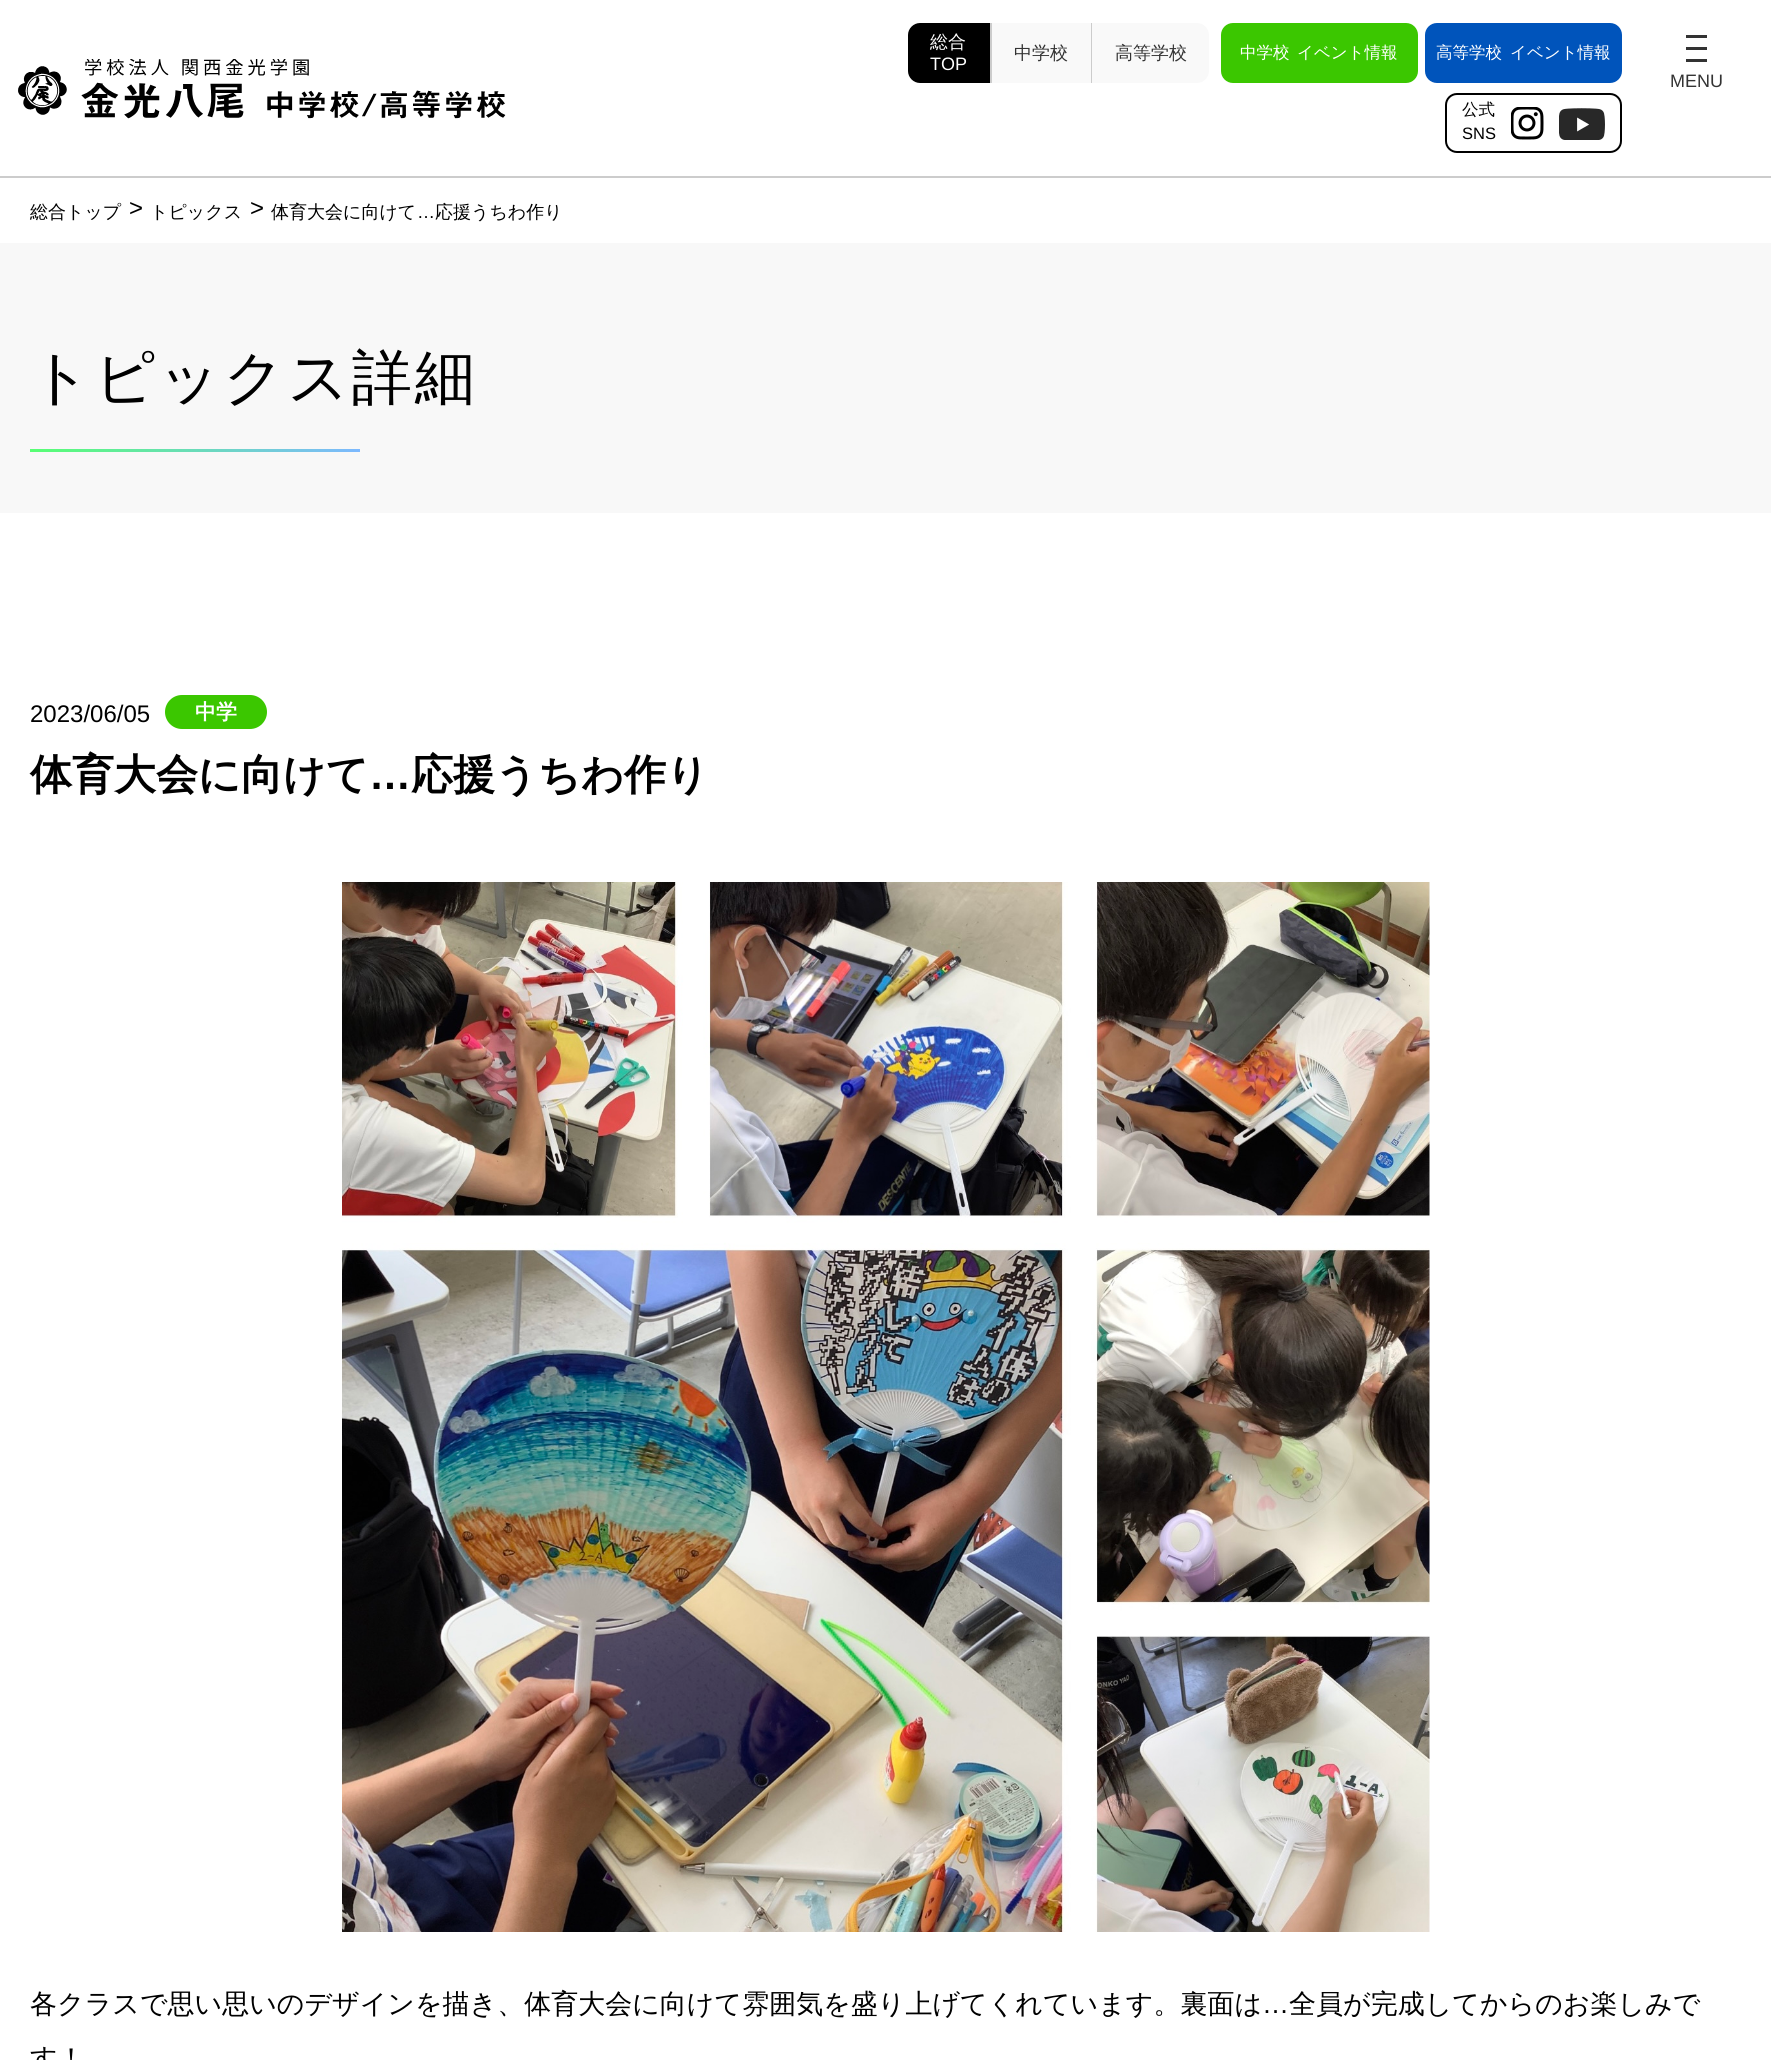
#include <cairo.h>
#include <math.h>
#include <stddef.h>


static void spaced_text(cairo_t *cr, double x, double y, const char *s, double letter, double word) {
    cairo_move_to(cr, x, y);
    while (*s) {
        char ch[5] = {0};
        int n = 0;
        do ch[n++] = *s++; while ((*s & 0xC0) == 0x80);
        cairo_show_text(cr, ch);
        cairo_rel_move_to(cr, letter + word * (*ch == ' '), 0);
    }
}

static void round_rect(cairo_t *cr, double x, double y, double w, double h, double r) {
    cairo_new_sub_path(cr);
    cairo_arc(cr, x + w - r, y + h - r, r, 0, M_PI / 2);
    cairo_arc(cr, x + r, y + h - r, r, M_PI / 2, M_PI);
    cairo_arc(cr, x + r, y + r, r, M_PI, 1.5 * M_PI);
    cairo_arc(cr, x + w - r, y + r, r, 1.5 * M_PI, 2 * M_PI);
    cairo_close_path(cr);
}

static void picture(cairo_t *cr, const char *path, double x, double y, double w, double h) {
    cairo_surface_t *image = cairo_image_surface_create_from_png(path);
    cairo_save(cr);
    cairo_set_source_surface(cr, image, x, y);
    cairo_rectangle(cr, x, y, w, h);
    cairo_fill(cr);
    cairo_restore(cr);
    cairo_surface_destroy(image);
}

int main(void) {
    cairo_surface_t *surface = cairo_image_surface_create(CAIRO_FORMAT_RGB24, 1771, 2060);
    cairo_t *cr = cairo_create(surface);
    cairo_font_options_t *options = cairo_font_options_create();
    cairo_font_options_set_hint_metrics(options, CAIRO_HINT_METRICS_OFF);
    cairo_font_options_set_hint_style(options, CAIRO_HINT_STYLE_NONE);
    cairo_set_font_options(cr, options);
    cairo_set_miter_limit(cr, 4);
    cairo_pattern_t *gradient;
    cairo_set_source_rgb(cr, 1, 1, 1);
    cairo_paint(cr);
    cairo_set_source_rgb(cr, 0.8, 0.8, 0.8);
    cairo_rectangle(cr, 0, 176, 1771, 2);
    cairo_fill(cr);
    picture(cr, "img1.png", 18, 59, 488, 60);
    cairo_set_source_rgb(cr, 0, 0, 0);
    cairo_new_path(cr);
    cairo_move_to(cr, 920, 23);
    cairo_line_to(cr, 990, 23);
    cairo_line_to(cr, 990, 83);
    cairo_line_to(cr, 920, 83);
    cairo_curve_to(cr, 913.5, 83, 908, 77.5, 908, 71);
    cairo_line_to(cr, 908, 35);
    cairo_curve_to(cr, 908, 28.5, 913.5, 23, 920, 23);
    cairo_close_path(cr);
    cairo_fill(cr);
    cairo_select_font_face(cr, "WenQuanYi Zen Hei Medium", CAIRO_FONT_SLANT_NORMAL, CAIRO_FONT_WEIGHT_NORMAL);
    cairo_set_font_size(cr, 18);
    cairo_set_source_rgb(cr, 1, 1, 1);
    cairo_move_to(cr, 930, 48);
    cairo_show_text(cr, "総合");
    cairo_select_font_face(cr, "Liberation Sans", CAIRO_FONT_SLANT_NORMAL, CAIRO_FONT_WEIGHT_NORMAL);
    cairo_move_to(cr, 930, 70);
    cairo_show_text(cr, "TOP");
    cairo_set_source_rgb(cr, 0.976, 0.976, 0.976);
    cairo_rectangle(cr, 992, 23, 99, 60);
    cairo_fill(cr);
    cairo_set_source_rgb(cr, 0.8, 0.8, 0.8);
    cairo_rectangle(cr, 1091, 23, 1, 60);
    cairo_fill(cr);
    cairo_rectangle(cr, 990, 23, 2, 60);
    cairo_fill(cr);
    cairo_select_font_face(cr, "WenQuanYi Zen Hei Medium", CAIRO_FONT_SLANT_NORMAL, CAIRO_FONT_WEIGHT_NORMAL);
    cairo_set_source_rgb(cr, 0.2, 0.2, 0.2);
    cairo_move_to(cr, 1014, 59);
    cairo_show_text(cr, "中学校");
    cairo_set_source_rgb(cr, 0.976, 0.976, 0.976);
    cairo_new_path(cr);
    cairo_move_to(cr, 1092, 23);
    cairo_line_to(cr, 1197, 23);
    cairo_curve_to(cr, 1203.5, 23, 1209, 28.5, 1209, 35);
    cairo_line_to(cr, 1209, 71);
    cairo_curve_to(cr, 1209, 77.5, 1203.5, 83, 1197, 83);
    cairo_line_to(cr, 1092, 83);
    cairo_close_path(cr);
    cairo_fill(cr);
    cairo_set_source_rgb(cr, 0.2, 0.2, 0.2);
    cairo_move_to(cr, 1115, 59);
    cairo_show_text(cr, "高等学校");
    cairo_set_source_rgb(cr, 0.231, 0.78, 0);
    round_rect(cr, 1221, 23, 197, 60, 12);
    cairo_fill(cr);
    cairo_set_font_size(cr, 16.5);
    cairo_set_source_rgb(cr, 1, 1, 1);
    cairo_move_to(cr, 1240, 58);
    cairo_show_text(cr, "中学校");
    cairo_move_to(cr, 1297, 58);
    cairo_show_text(cr, "イベント情報");
    cairo_set_source_rgb(cr, 0, 0.329, 0.733);
    round_rect(cr, 1425, 23, 197, 60, 12);
    cairo_fill(cr);
    cairo_set_source_rgb(cr, 1, 1, 1);
    cairo_move_to(cr, 1436, 58);
    cairo_show_text(cr, "高等学校");
    cairo_move_to(cr, 1510, 58);
    cairo_show_text(cr, "イベント情報");
    round_rect(cr, 1446, 94, 175, 58, 11);
    cairo_set_source_rgb(cr, 0, 0, 0);
    cairo_stroke(cr);
    cairo_move_to(cr, 1462, 115);
    cairo_show_text(cr, "公式");
    cairo_select_font_face(cr, "Liberation Sans", CAIRO_FONT_SLANT_NORMAL, CAIRO_FONT_WEIGHT_NORMAL);
    cairo_move_to(cr, 1462, 139);
    cairo_show_text(cr, "SNS");
    picture(cr, "img2.png", 1511, 107, 33, 33);
    picture(cr, "img3.png", 1559, 108, 46, 32);
    cairo_set_source_rgb(cr, 0.2, 0.2, 0.2);
    cairo_rectangle(cr, 1686, 47, 21, 3);
    cairo_fill(cr);
    cairo_rectangle(cr, 1686, 35, 21, 3);
    cairo_fill(cr);
    cairo_rectangle(cr, 1686, 59, 21, 3);
    cairo_fill(cr);
    cairo_set_font_size(cr, 18);
    cairo_move_to(cr, 1670, 87);
    cairo_show_text(cr, "MENU");
    cairo_select_font_face(cr, "WenQuanYi Zen Hei Medium", CAIRO_FONT_SLANT_NORMAL, CAIRO_FONT_WEIGHT_NORMAL);
    cairo_set_source_rgb(cr, 0, 0, 0);
    cairo_move_to(cr, 30, 218);
    cairo_show_text(cr, "総合トップ");
    cairo_select_font_face(cr, "Liberation Sans", CAIRO_FONT_SLANT_NORMAL, CAIRO_FONT_WEIGHT_NORMAL);
    cairo_set_font_size(cr, 24);
    cairo_move_to(cr, 129, 216);
    cairo_show_text(cr, ">");
    cairo_select_font_face(cr, "WenQuanYi Zen Hei Medium", CAIRO_FONT_SLANT_NORMAL, CAIRO_FONT_WEIGHT_NORMAL);
    cairo_set_font_size(cr, 18);
    cairo_move_to(cr, 150, 218);
    cairo_show_text(cr, "トピックス");
    cairo_select_font_face(cr, "Liberation Sans", CAIRO_FONT_SLANT_NORMAL, CAIRO_FONT_WEIGHT_NORMAL);
    cairo_set_font_size(cr, 24);
    cairo_move_to(cr, 250, 216);
    cairo_show_text(cr, ">");
    cairo_select_font_face(cr, "WenQuanYi Zen Hei Medium", CAIRO_FONT_SLANT_NORMAL, CAIRO_FONT_WEIGHT_NORMAL);
    cairo_set_font_size(cr, 18);
    cairo_move_to(cr, 271, 218);
    cairo_show_text(cr, "体育大会に向けて");
    cairo_select_font_face(cr, "Liberation Sans", CAIRO_FONT_SLANT_NORMAL, CAIRO_FONT_WEIGHT_NORMAL);
    cairo_move_to(cr, 417, 218);
    cairo_show_text(cr, "…");
    cairo_select_font_face(cr, "WenQuanYi Zen Hei Medium", CAIRO_FONT_SLANT_NORMAL, CAIRO_FONT_WEIGHT_NORMAL);
    cairo_move_to(cr, 435, 218);
    cairo_show_text(cr, "応援うちわ作り");
    cairo_set_source_rgb(cr, 0.969, 0.969, 0.969);
    cairo_rectangle(cr, 0, 243, 1771, 270);
    cairo_fill(cr);
    cairo_set_font_size(cr, 60);
    cairo_set_source_rgb(cr, 0, 0, 0);
    spaced_text(cr, 30, 398, "トピックス詳細", 3, 0);
    gradient = cairo_pattern_create_linear(30, 450, 360, 450);
    cairo_pattern_add_color_stop_rgba(gradient, 0, 0.341, 1, 0.451, 1);
    cairo_pattern_add_color_stop_rgba(gradient, 1, 0.49, 0.725, 1, 1);
    cairo_set_source(cr, gradient);
    cairo_pattern_destroy(gradient);
    cairo_rectangle(cr, 30, 449, 330, 3);
    cairo_fill(cr);
    cairo_select_font_face(cr, "Liberation Sans", CAIRO_FONT_SLANT_NORMAL, CAIRO_FONT_WEIGHT_NORMAL);
    cairo_set_font_size(cr, 24);
    cairo_set_source_rgb(cr, 0, 0, 0);
    cairo_move_to(cr, 30, 722);
    cairo_show_text(cr, "2023/06/05");
    cairo_set_source_rgb(cr, 0.231, 0.78, 0);
    round_rect(cr, 165, 695, 102, 34, 17);
    cairo_fill(cr);
    cairo_select_font_face(cr, "WenQuanYi Zen Hei", CAIRO_FONT_SLANT_NORMAL, CAIRO_FONT_WEIGHT_BOLD);
    cairo_set_font_size(cr, 21);
    cairo_set_source_rgb(cr, 1, 1, 1);
    cairo_move_to(cr, 195, 719);
    cairo_show_text(cr, "中学");
    cairo_set_font_size(cr, 42);
    cairo_set_source_rgb(cr, 0, 0, 0);
    cairo_move_to(cr, 30, 789);
    cairo_show_text(cr, "体育大会に向けて");
    cairo_select_font_face(cr, "Liberation Sans", CAIRO_FONT_SLANT_NORMAL, CAIRO_FONT_WEIGHT_BOLD);
    cairo_move_to(cr, 369, 789);
    cairo_show_text(cr, "…");
    cairo_select_font_face(cr, "WenQuanYi Zen Hei", CAIRO_FONT_SLANT_NORMAL, CAIRO_FONT_WEIGHT_BOLD);
    cairo_move_to(cr, 411, 789);
    cairo_show_text(cr, "応援うちわ作り");
    picture(cr, "img4.png", 342, 882, 1088, 1050);
    cairo_select_font_face(cr, "WenQuanYi Zen Hei Medium", CAIRO_FONT_SLANT_NORMAL, CAIRO_FONT_WEIGHT_NORMAL);
    cairo_set_font_size(cr, 27);
    cairo_move_to(cr, 30, 2013);
    cairo_show_text(cr, "各クラスで思い思いのデザインを描き、体育大会に向けて雰囲気を盛り上げてくれています。裏面は");
    cairo_select_font_face(cr, "Liberation Sans", CAIRO_FONT_SLANT_NORMAL, CAIRO_FONT_WEIGHT_NORMAL);
    cairo_move_to(cr, 1262, 2013);
    cairo_show_text(cr, "…");
    cairo_select_font_face(cr, "WenQuanYi Zen Hei Medium", CAIRO_FONT_SLANT_NORMAL, CAIRO_FONT_WEIGHT_NORMAL);
    cairo_move_to(cr, 1289, 2013);
    cairo_show_text(cr, "全員が完成してからのお楽しみで");
    cairo_move_to(cr, 30, 2067);
    cairo_show_text(cr, "す！");
    cairo_surface_write_to_png(surface, "page.png");
    cairo_font_options_destroy(options);
    cairo_destroy(cr);
    cairo_surface_destroy(surface);
    return 0;
}
